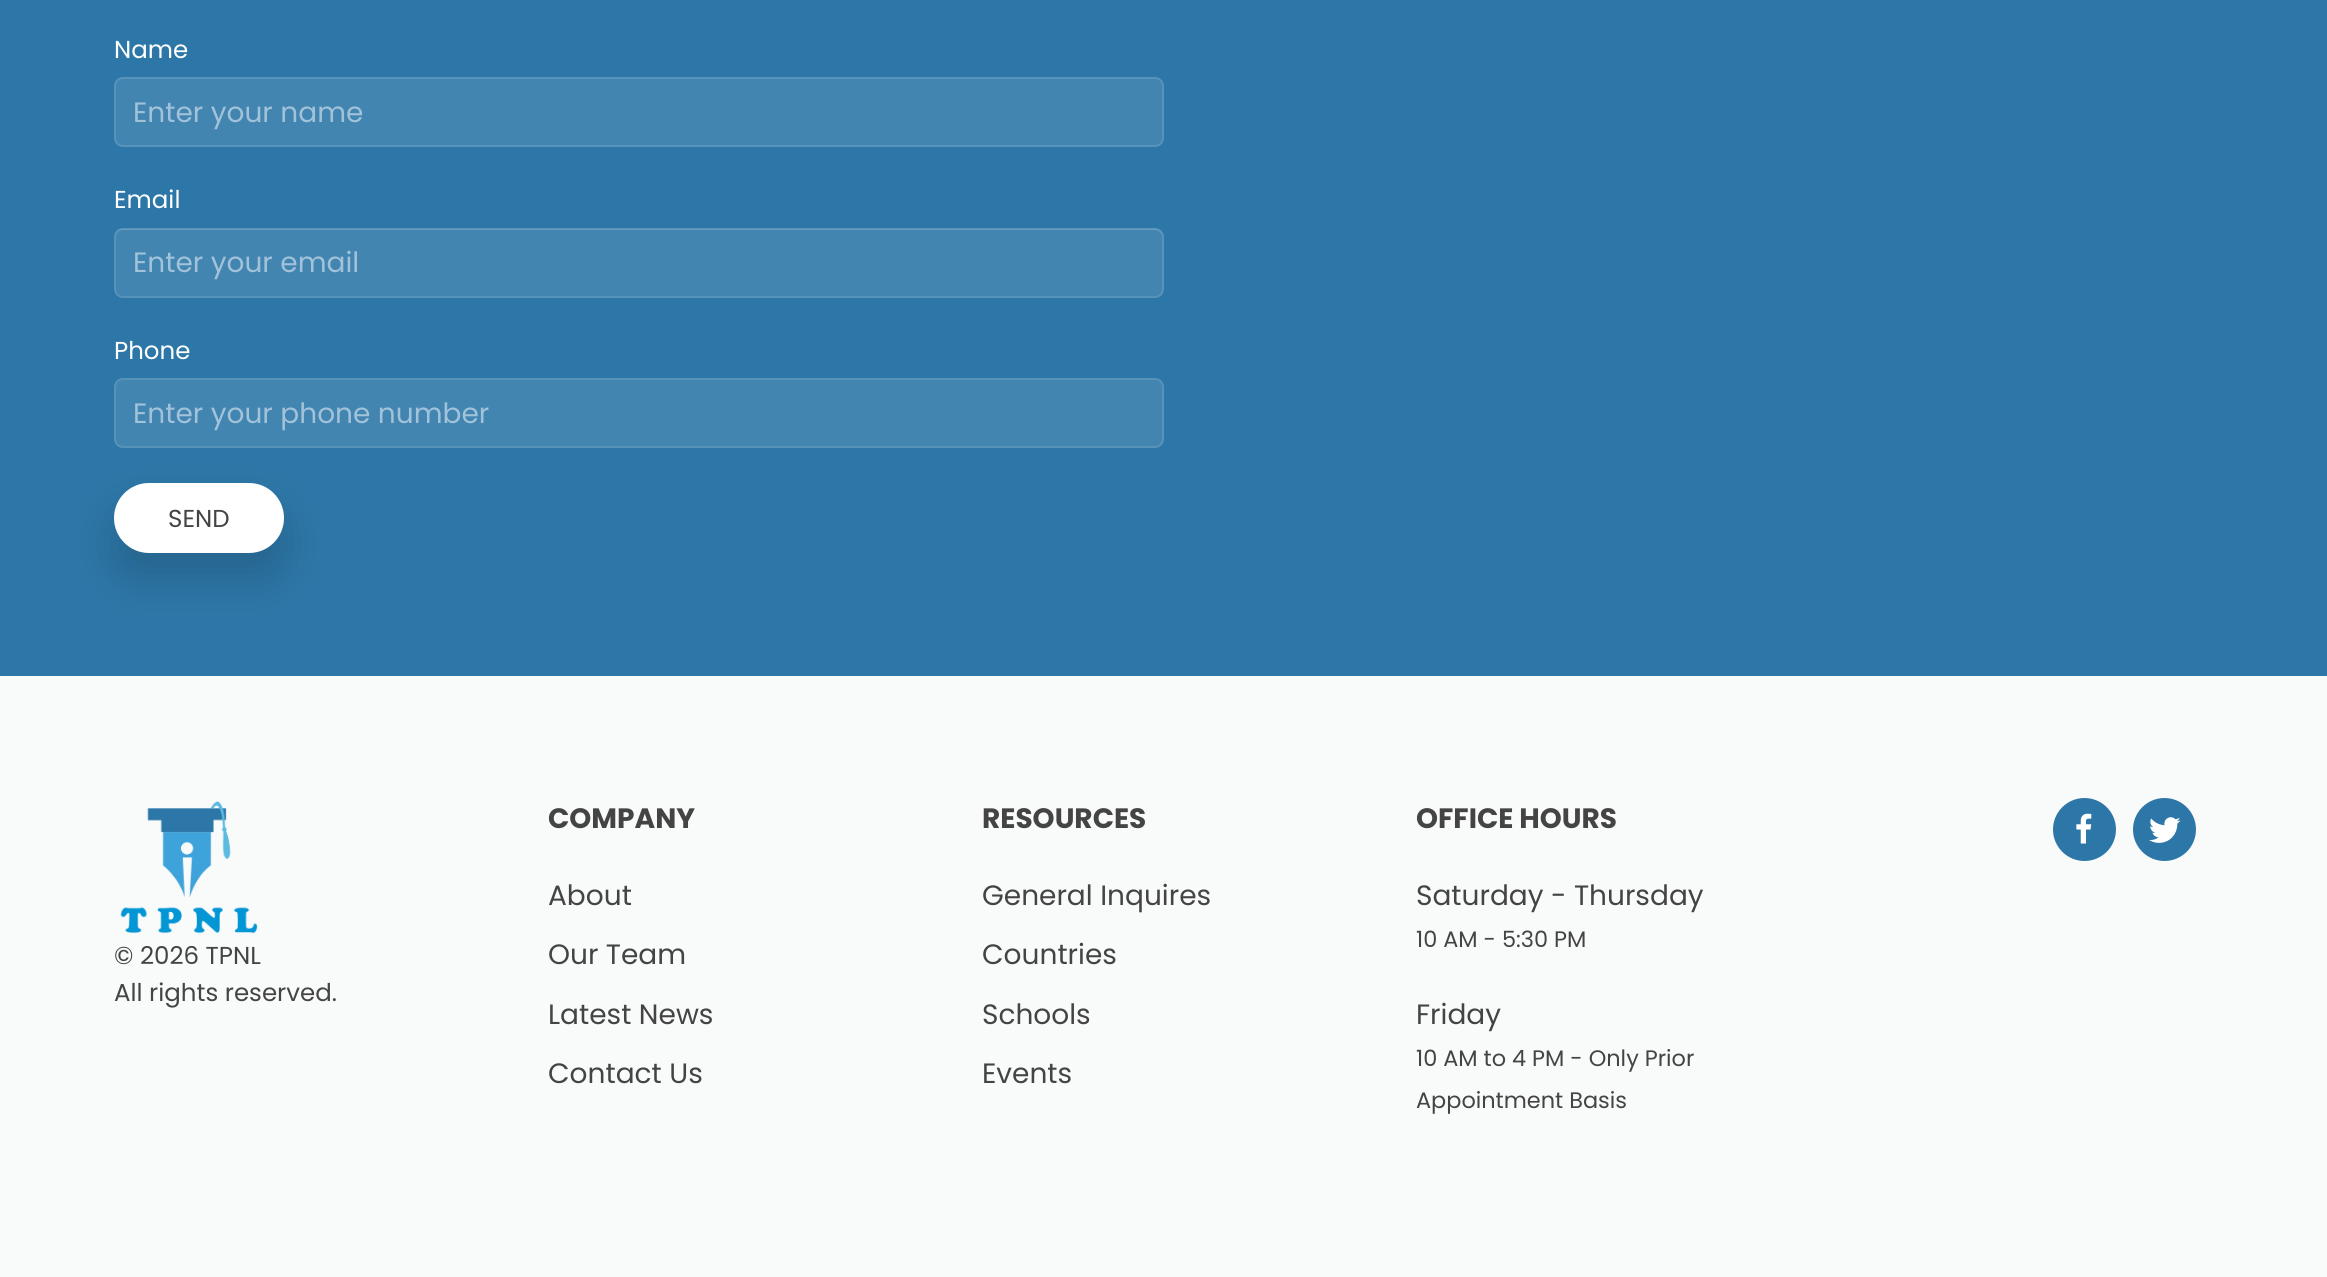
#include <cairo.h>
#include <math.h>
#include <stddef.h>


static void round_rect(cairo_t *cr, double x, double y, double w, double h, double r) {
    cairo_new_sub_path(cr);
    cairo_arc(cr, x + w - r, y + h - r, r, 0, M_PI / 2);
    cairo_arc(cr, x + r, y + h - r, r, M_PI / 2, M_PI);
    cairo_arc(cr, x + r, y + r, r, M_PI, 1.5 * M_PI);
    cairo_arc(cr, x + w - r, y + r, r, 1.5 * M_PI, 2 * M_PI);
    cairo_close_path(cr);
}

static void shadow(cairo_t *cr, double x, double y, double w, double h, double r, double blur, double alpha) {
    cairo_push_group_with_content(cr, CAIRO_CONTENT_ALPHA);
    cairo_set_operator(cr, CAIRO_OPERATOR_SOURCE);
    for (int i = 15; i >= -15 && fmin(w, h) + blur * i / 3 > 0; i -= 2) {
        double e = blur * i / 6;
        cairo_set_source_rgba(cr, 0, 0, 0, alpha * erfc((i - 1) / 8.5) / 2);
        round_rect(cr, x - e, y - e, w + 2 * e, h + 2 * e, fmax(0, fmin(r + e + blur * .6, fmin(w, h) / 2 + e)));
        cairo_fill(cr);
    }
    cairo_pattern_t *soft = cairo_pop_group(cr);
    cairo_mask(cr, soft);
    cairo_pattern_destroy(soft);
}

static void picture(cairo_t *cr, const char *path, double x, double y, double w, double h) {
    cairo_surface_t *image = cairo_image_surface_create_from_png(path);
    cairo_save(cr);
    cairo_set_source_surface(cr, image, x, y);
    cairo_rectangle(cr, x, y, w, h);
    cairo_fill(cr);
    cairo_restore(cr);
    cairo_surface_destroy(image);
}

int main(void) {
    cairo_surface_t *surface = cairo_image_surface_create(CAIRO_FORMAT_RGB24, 2327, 1277);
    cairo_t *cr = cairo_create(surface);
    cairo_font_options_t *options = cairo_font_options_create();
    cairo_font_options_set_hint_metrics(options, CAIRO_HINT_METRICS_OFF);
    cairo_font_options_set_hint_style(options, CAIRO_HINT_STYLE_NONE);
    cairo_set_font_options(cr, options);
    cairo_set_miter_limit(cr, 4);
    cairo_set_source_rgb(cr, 0.176, 0.467, 0.659);
    cairo_paint(cr);
    cairo_select_font_face(cr, "Poppins", CAIRO_FONT_SLANT_NORMAL, CAIRO_FONT_WEIGHT_NORMAL);
    cairo_set_font_size(cr, 24.5);
    cairo_set_source_rgb(cr, 1, 1, 1);
    cairo_move_to(cr, 114, 58);
    cairo_show_text(cr, "Name");
    cairo_set_source_rgb(cr, 0.259, 0.522, 0.694);
    round_rect(cr, 116, 79, 1046, 66, 7);
    cairo_fill(cr);
    round_rect(cr, 115, 78, 1048, 68, 8);
    cairo_set_source_rgba(cr, 1, 1, 1, 0.2);
    cairo_stroke(cr);
    cairo_set_font_size(cr, 28);
    cairo_set_source_rgb(cr, 0.631, 0.761, 0.847);
    cairo_move_to(cr, 133, 122);
    cairo_show_text(cr, "Enter your name");
    cairo_set_font_size(cr, 24.5);
    cairo_set_source_rgb(cr, 1, 1, 1);
    cairo_move_to(cr, 114, 208);
    cairo_show_text(cr, "Email");
    cairo_set_source_rgb(cr, 0.259, 0.522, 0.694);
    round_rect(cr, 116, 229, 1046, 67, 7);
    cairo_fill(cr);
    round_rect(cr, 115, 229, 1048, 68, 8);
    cairo_set_source_rgba(cr, 1, 1, 1, 0.2);
    cairo_stroke(cr);
    cairo_set_font_size(cr, 28);
    cairo_set_source_rgb(cr, 0.631, 0.761, 0.847);
    cairo_move_to(cr, 133, 272);
    cairo_show_text(cr, "Enter your email");
    cairo_set_font_size(cr, 24.5);
    cairo_set_source_rgb(cr, 1, 1, 1);
    cairo_move_to(cr, 114, 359);
    cairo_show_text(cr, "Phone");
    cairo_set_source_rgb(cr, 0.259, 0.522, 0.694);
    round_rect(cr, 116, 380, 1046, 66, 7);
    cairo_fill(cr);
    round_rect(cr, 115, 379, 1048, 68, 8);
    cairo_set_source_rgba(cr, 1, 1, 1, 0.2);
    cairo_stroke(cr);
    cairo_set_font_size(cr, 28);
    cairo_set_source_rgb(cr, 0.631, 0.761, 0.847);
    cairo_move_to(cr, 133, 423);
    cairo_show_text(cr, "Enter your phone number");
    cairo_set_source_rgb(cr, 0, 0, 0);
    shadow(cr, 114, 508, 170, 70, 35, 22, 0.16);
    cairo_set_source_rgb(cr, 1, 1, 1);
    round_rect(cr, 114, 483, 170, 70, 35);
    cairo_fill(cr);
    cairo_set_font_size(cr, 24.5);
    cairo_set_source_rgb(cr, 0.267, 0.267, 0.267);
    cairo_move_to(cr, 168, 527);
    cairo_show_text(cr, "SEND");
    cairo_set_source_rgb(cr, 0.976, 0.98, 0.98);
    cairo_rectangle(cr, 0, 676, 2327, 601);
    cairo_fill(cr);
    picture(cr, "img1.png", 120, 801, 138, 133);
    cairo_set_source_rgb(cr, 0.267, 0.267, 0.267);
    cairo_move_to(cr, 114, 964);
    cairo_show_text(cr, "© 2026 TPNL");
    cairo_move_to(cr, 114, 1001);
    cairo_show_text(cr, "All rights reserved.");
    cairo_select_font_face(cr, "Poppins", CAIRO_FONT_SLANT_NORMAL, CAIRO_FONT_WEIGHT_BOLD);
    cairo_set_font_size(cr, 28);
    cairo_move_to(cr, 548, 828);
    cairo_show_text(cr, "COMPANY");
    cairo_select_font_face(cr, "Poppins", CAIRO_FONT_SLANT_NORMAL, CAIRO_FONT_WEIGHT_NORMAL);
    cairo_move_to(cr, 548, 905);
    cairo_show_text(cr, "About");
    cairo_move_to(cr, 548, 964);
    cairo_show_text(cr, "Our Team");
    cairo_move_to(cr, 548, 1024);
    cairo_show_text(cr, "Latest News");
    cairo_move_to(cr, 548, 1083);
    cairo_show_text(cr, "Contact Us");
    cairo_select_font_face(cr, "Poppins", CAIRO_FONT_SLANT_NORMAL, CAIRO_FONT_WEIGHT_BOLD);
    cairo_move_to(cr, 982, 828);
    cairo_show_text(cr, "RESOURCES");
    cairo_select_font_face(cr, "Poppins", CAIRO_FONT_SLANT_NORMAL, CAIRO_FONT_WEIGHT_NORMAL);
    cairo_move_to(cr, 982, 905);
    cairo_show_text(cr, "General Inquires");
    cairo_move_to(cr, 982, 964);
    cairo_show_text(cr, "Countries");
    cairo_move_to(cr, 982, 1024);
    cairo_show_text(cr, "Schools");
    cairo_move_to(cr, 982, 1083);
    cairo_show_text(cr, "Events");
    cairo_select_font_face(cr, "Poppins", CAIRO_FONT_SLANT_NORMAL, CAIRO_FONT_WEIGHT_BOLD);
    cairo_move_to(cr, 1416, 828);
    cairo_show_text(cr, "OFFICE HOURS");
    cairo_select_font_face(cr, "Poppins", CAIRO_FONT_SLANT_NORMAL, CAIRO_FONT_WEIGHT_NORMAL);
    cairo_move_to(cr, 1416, 905);
    cairo_show_text(cr, "Saturday - Thursday");
    cairo_set_font_size(cr, 22.4);
    cairo_move_to(cr, 1416, 947);
    cairo_show_text(cr, "10 AM - 5:30 PM");
    cairo_set_font_size(cr, 28);
    cairo_move_to(cr, 1416, 1024);
    cairo_show_text(cr, "Friday");
    cairo_set_font_size(cr, 22.4);
    cairo_move_to(cr, 1416, 1066);
    cairo_show_text(cr, "10 AM to 4 PM - Only Prior");
    cairo_move_to(cr, 1416, 1108);
    cairo_show_text(cr, "Appointment Basis");
    cairo_set_source_rgb(cr, 0.176, 0.467, 0.659);
    cairo_new_path(cr);
    cairo_arc(cr, 2084.5, 829.5, 31.5, 0, 2 * M_PI);
    cairo_fill(cr);
    picture(cr, "img2.png", 2076, 813, 16, 31);
    cairo_arc(cr, 2164.5, 829.5, 31.5, 0, 2 * M_PI);
    cairo_fill(cr);
    picture(cr, "img3.png", 2149, 817, 32, 26);
    cairo_surface_write_to_png(surface, "page.png");
    cairo_font_options_destroy(options);
    cairo_destroy(cr);
    cairo_surface_destroy(surface);
    return 0;
}
